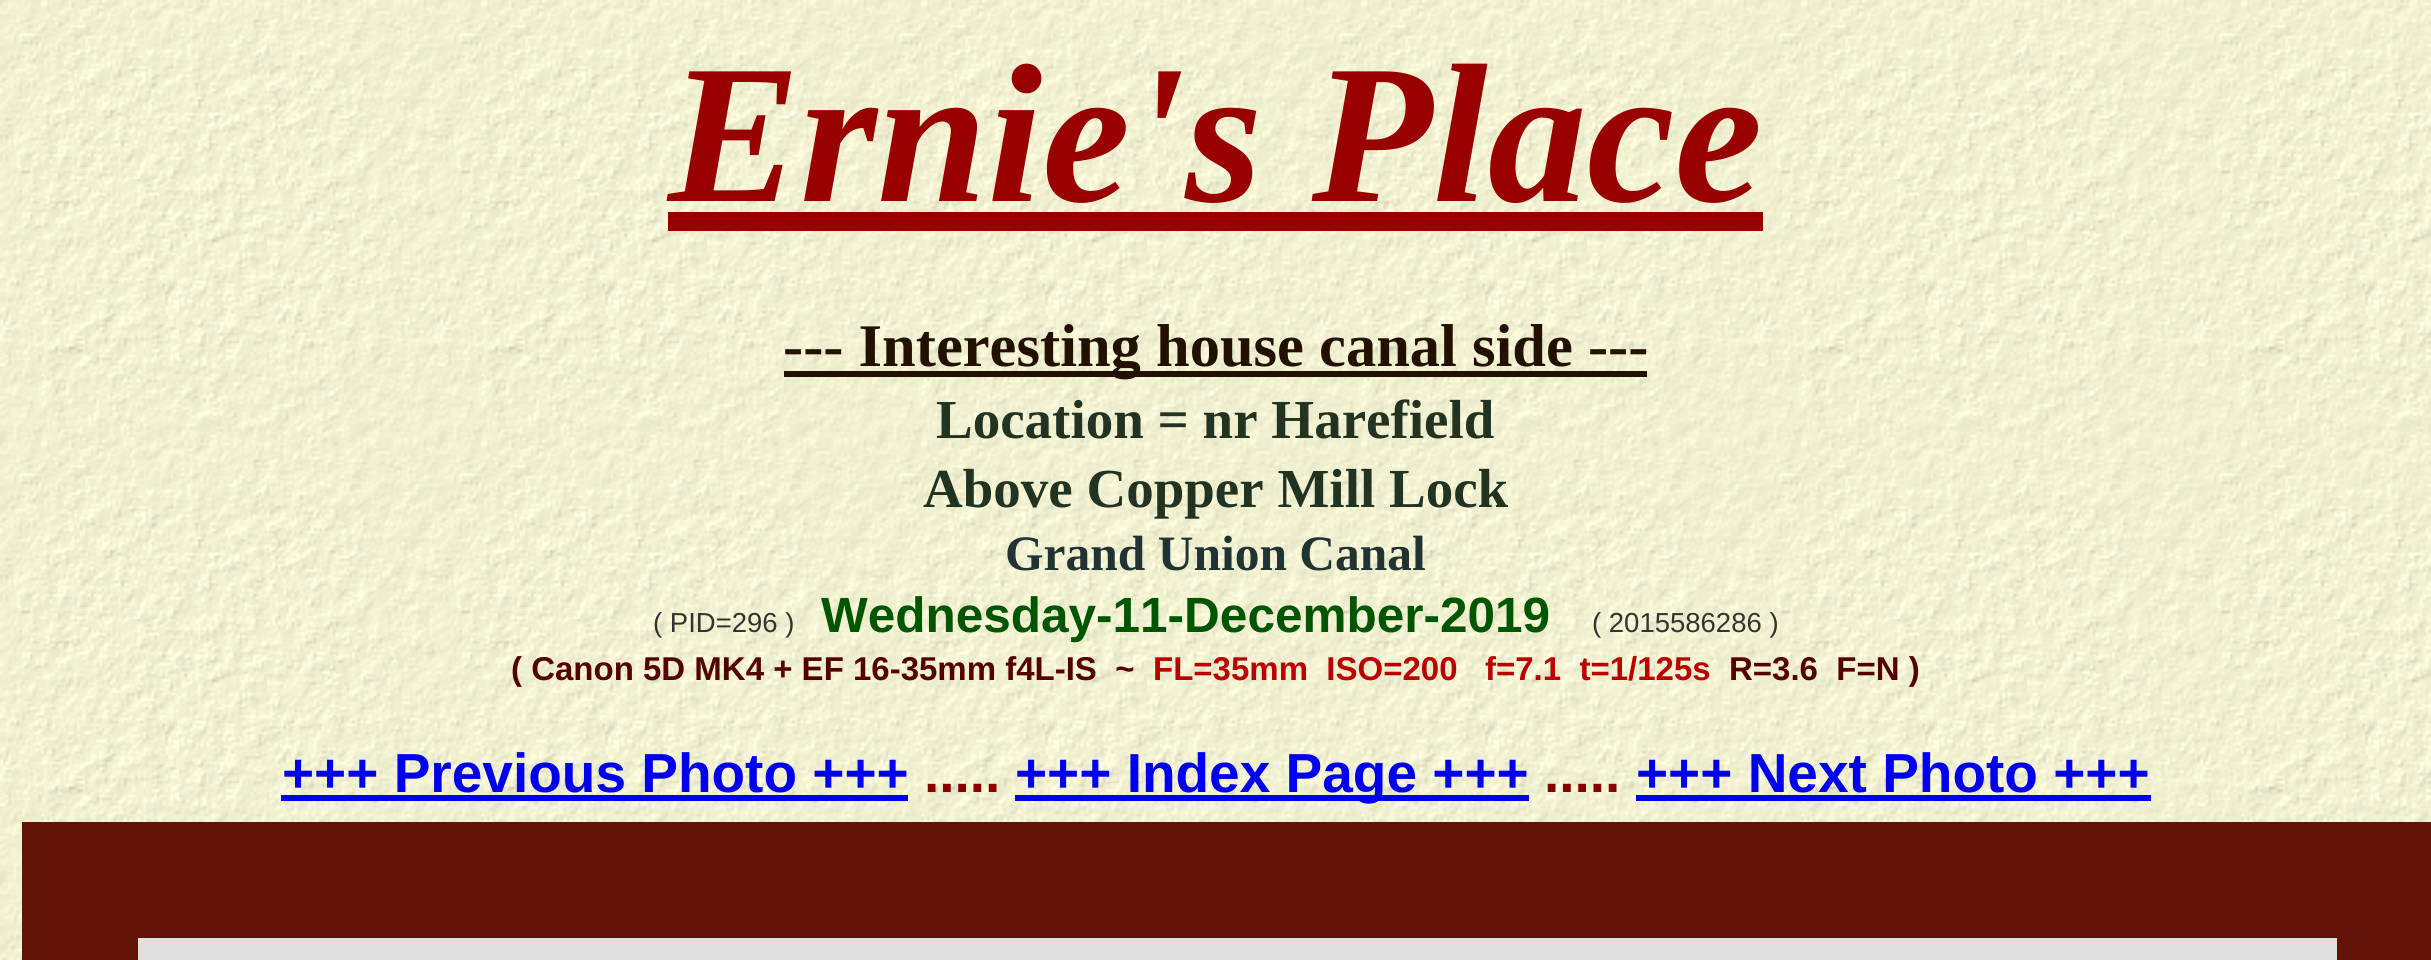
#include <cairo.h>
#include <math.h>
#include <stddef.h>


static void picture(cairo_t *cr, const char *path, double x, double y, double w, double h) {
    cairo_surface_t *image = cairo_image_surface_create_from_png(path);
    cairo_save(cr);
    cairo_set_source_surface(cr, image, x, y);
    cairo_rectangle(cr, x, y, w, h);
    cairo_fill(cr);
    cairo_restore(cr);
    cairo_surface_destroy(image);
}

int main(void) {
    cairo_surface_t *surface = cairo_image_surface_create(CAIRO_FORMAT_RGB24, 2431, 960);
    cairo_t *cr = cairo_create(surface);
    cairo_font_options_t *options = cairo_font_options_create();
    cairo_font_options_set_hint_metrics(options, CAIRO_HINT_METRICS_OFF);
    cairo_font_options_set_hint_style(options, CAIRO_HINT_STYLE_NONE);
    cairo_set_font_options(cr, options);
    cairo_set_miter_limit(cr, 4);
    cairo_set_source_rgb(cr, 1, 1, 1);
    cairo_paint(cr);
    picture(cr, "img1.png", 0, 0, 2431, 960);
    cairo_select_font_face(cr, "Liberation Serif", CAIRO_FONT_SLANT_ITALIC, CAIRO_FONT_WEIGHT_BOLD);
    cairo_set_font_size(cr, 198);
    cairo_set_source_rgb(cr, 0.6, 0, 0);
    cairo_move_to(cr, 668, 201);
    cairo_show_text(cr, "Ernie's Place");
    cairo_rectangle(cr, 668, 212, 1095, 19);
    cairo_fill(cr);
    cairo_set_source_rgb(cr, 0.133, 0.067, 0);
    cairo_rectangle(cr, 784, 371, 863, 6);
    cairo_fill(cr);
    cairo_select_font_face(cr, "Liberation Serif", CAIRO_FONT_SLANT_NORMAL, CAIRO_FONT_WEIGHT_BOLD);
    cairo_set_font_size(cr, 60.5);
    cairo_move_to(cr, 783, 366);
    cairo_show_text(cr, "--- Interesting house canal side ---");
    cairo_set_font_size(cr, 55);
    cairo_set_source_rgb(cr, 0.133, 0.2, 0.133);
    cairo_move_to(cr, 936, 438);
    cairo_show_text(cr, "Location = nr Harefield");
    cairo_move_to(cr, 923, 507);
    cairo_show_text(cr, "Above Copper Mill Lock");
    cairo_set_font_size(cr, 49.5);
    cairo_set_source_rgb(cr, 0.133, 0.2, 0.2);
    cairo_move_to(cr, 1005, 570);
    cairo_show_text(cr, "Grand Union Canal");
    cairo_select_font_face(cr, "Liberation Sans", CAIRO_FONT_SLANT_NORMAL, CAIRO_FONT_WEIGHT_NORMAL);
    cairo_set_font_size(cr, 27.5);
    cairo_set_source_rgb(cr, 0.2, 0.2, 0.2);
    cairo_move_to(cr, 653, 632);
    cairo_show_text(cr, "( PID=296 )");
    cairo_select_font_face(cr, "Liberation Sans", CAIRO_FONT_SLANT_NORMAL, CAIRO_FONT_WEIGHT_BOLD);
    cairo_set_font_size(cr, 49.5);
    cairo_set_source_rgb(cr, 0, 0.333, 0);
    cairo_move_to(cr, 821, 632);
    cairo_show_text(cr, "Wednesday-11-December-2019");
    cairo_select_font_face(cr, "Liberation Sans", CAIRO_FONT_SLANT_NORMAL, CAIRO_FONT_WEIGHT_NORMAL);
    cairo_set_font_size(cr, 27.5);
    cairo_set_source_rgb(cr, 0.2, 0.2, 0.2);
    cairo_move_to(cr, 1592, 632);
    cairo_show_text(cr, "( 2015586286 )");
    cairo_select_font_face(cr, "Liberation Sans", CAIRO_FONT_SLANT_NORMAL, CAIRO_FONT_WEIGHT_BOLD);
    cairo_set_font_size(cr, 33);
    cairo_set_source_rgb(cr, 0.333, 0, 0);
    cairo_move_to(cr, 511, 680);
    cairo_show_text(cr, "( Canon 5D MK4 + EF 16-35mm f4L-IS  ~");
    cairo_set_source_rgb(cr, 0.733, 0, 0);
    cairo_move_to(cr, 1153, 680);
    cairo_show_text(cr, "FL=35mm  ISO=200   f=7.1  t=1/125s");
    cairo_set_source_rgb(cr, 0.333, 0, 0);
    cairo_move_to(cr, 1729, 680);
    cairo_show_text(cr, "R=3.6  F=N )");
    cairo_set_font_size(cr, 55);
    cairo_set_source_rgb(cr, 0, 0, 0.933);
    cairo_move_to(cr, 282, 792);
    cairo_show_text(cr, "+++ Previous Photo +++");
    cairo_rectangle(cr, 281, 795, 627, 6);
    cairo_fill(cr);
    cairo_set_source_rgb(cr, 0.533, 0, 0);
    cairo_move_to(cr, 924, 792);
    cairo_show_text(cr, ".....");
    cairo_set_source_rgb(cr, 0, 0, 0.933);
    cairo_rectangle(cr, 1015, 795, 514, 6);
    cairo_fill(cr);
    cairo_move_to(cr, 1015, 792);
    cairo_show_text(cr, "+++ Index Page +++");
    cairo_set_source_rgb(cr, 0.533, 0, 0);
    cairo_move_to(cr, 1544, 792);
    cairo_show_text(cr, ".....");
    cairo_set_source_rgb(cr, 0, 0, 0.933);
    cairo_move_to(cr, 1636, 792);
    cairo_show_text(cr, "+++ Next Photo +++");
    cairo_rectangle(cr, 1636, 795, 515, 6);
    cairo_fill(cr);
    cairo_set_source_rgb(cr, 0.878, 0.878, 0.878);
    cairo_rectangle(cr, 80, 880, 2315, 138);
    cairo_fill_preserve(cr);
    cairo_set_source_rgb(cr, 0.376, 0.078, 0.027);
    cairo_set_line_width(cr, 116);
    cairo_stroke(cr);
    cairo_surface_write_to_png(surface, "page.png");
    cairo_font_options_destroy(options);
    cairo_destroy(cr);
    cairo_surface_destroy(surface);
    return 0;
}
